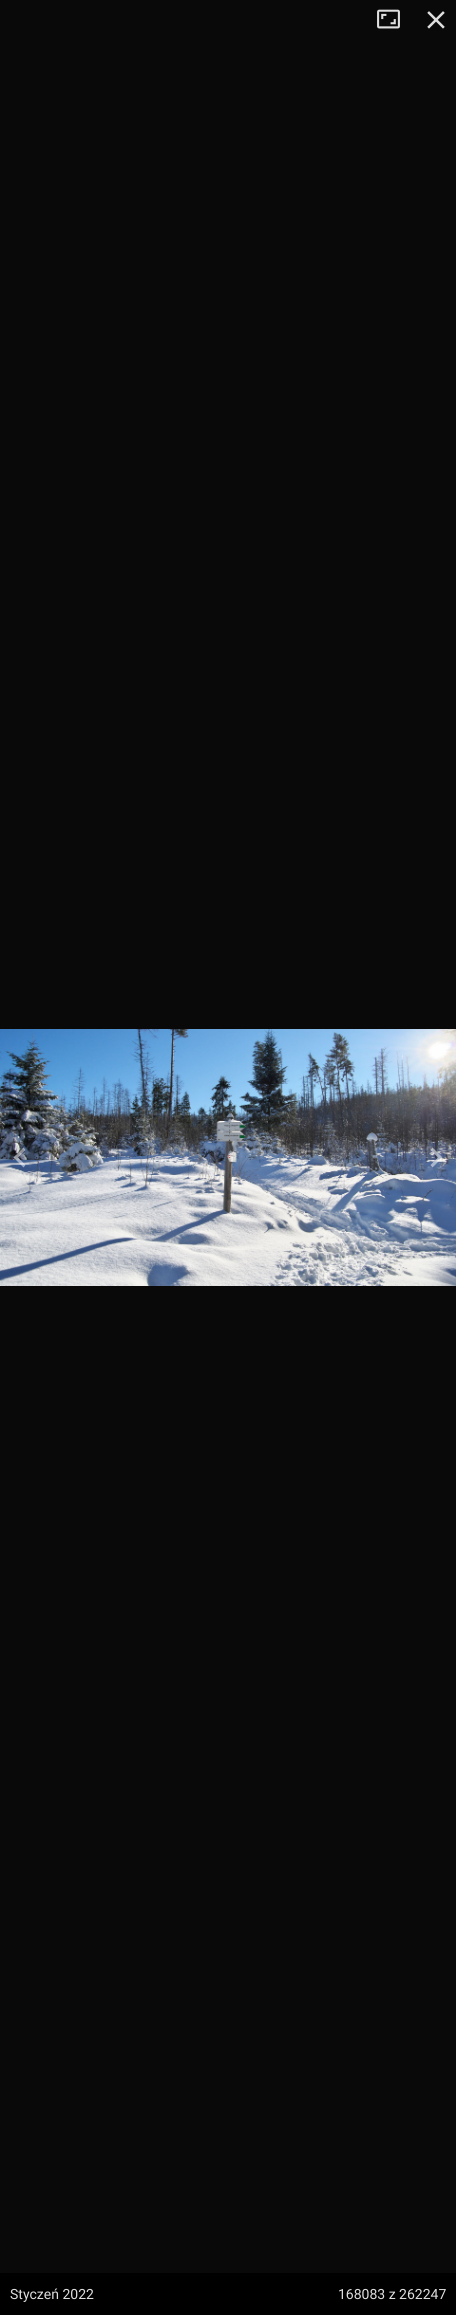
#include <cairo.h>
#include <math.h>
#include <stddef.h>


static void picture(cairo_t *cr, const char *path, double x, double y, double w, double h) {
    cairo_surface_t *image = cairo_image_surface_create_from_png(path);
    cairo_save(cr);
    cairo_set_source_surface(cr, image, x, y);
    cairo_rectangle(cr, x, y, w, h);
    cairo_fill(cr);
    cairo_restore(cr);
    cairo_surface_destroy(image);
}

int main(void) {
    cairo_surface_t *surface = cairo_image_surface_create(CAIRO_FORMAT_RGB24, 456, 2315);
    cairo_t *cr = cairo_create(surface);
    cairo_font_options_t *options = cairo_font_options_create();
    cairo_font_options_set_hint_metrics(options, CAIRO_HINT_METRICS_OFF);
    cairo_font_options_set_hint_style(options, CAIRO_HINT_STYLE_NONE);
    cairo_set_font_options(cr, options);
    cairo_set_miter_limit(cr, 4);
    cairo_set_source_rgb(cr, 0.039, 0.039, 0.039);
    cairo_paint(cr);
    picture(cr, "img1.png", 377, 9, 23, 20);
    picture(cr, "img2.png", 427, 11, 18, 18);
    picture(cr, "img3.png", 0, 1029, 456, 257);
    cairo_set_source_rgba(cr, 1, 1, 1, 0.5);
    cairo_new_path(cr);
    cairo_move_to(cr, 25.5, 1150);
    cairo_line_to(cr, 23.5, 1147.5);
    cairo_line_to(cr, 13.5, 1157.5);
    cairo_line_to(cr, 23.5, 1167.5);
    cairo_line_to(cr, 25.5, 1165);
    cairo_line_to(cr, 18, 1157.5);
    cairo_close_path(cr);
    cairo_fill(cr);
    cairo_new_path(cr);
    cairo_move_to(cr, 432.5, 1147.5);
    cairo_line_to(cr, 430.5, 1150);
    cairo_line_to(cr, 438, 1157.5);
    cairo_line_to(cr, 430.5, 1165);
    cairo_line_to(cr, 432.5, 1167.5);
    cairo_line_to(cr, 442.5, 1157.5);
    cairo_close_path(cr);
    cairo_fill(cr);
    cairo_set_source_rgb(cr, 0, 0, 0);
    cairo_rectangle(cr, 0, 2273, 456, 42);
    cairo_fill(cr);
    cairo_select_font_face(cr, "Roboto", CAIRO_FONT_SLANT_NORMAL, CAIRO_FONT_WEIGHT_NORMAL);
    cairo_set_font_size(cr, 14);
    cairo_set_source_rgb(cr, 0.871, 0.871, 0.871);
    cairo_move_to(cr, 10, 2299);
    cairo_show_text(cr, "Styczeń 2022");
    cairo_move_to(cr, 338, 2299);
    cairo_show_text(cr, "168083 z 262247");
    cairo_surface_write_to_png(surface, "page.png");
    cairo_font_options_destroy(options);
    cairo_destroy(cr);
    cairo_surface_destroy(surface);
    return 0;
}
